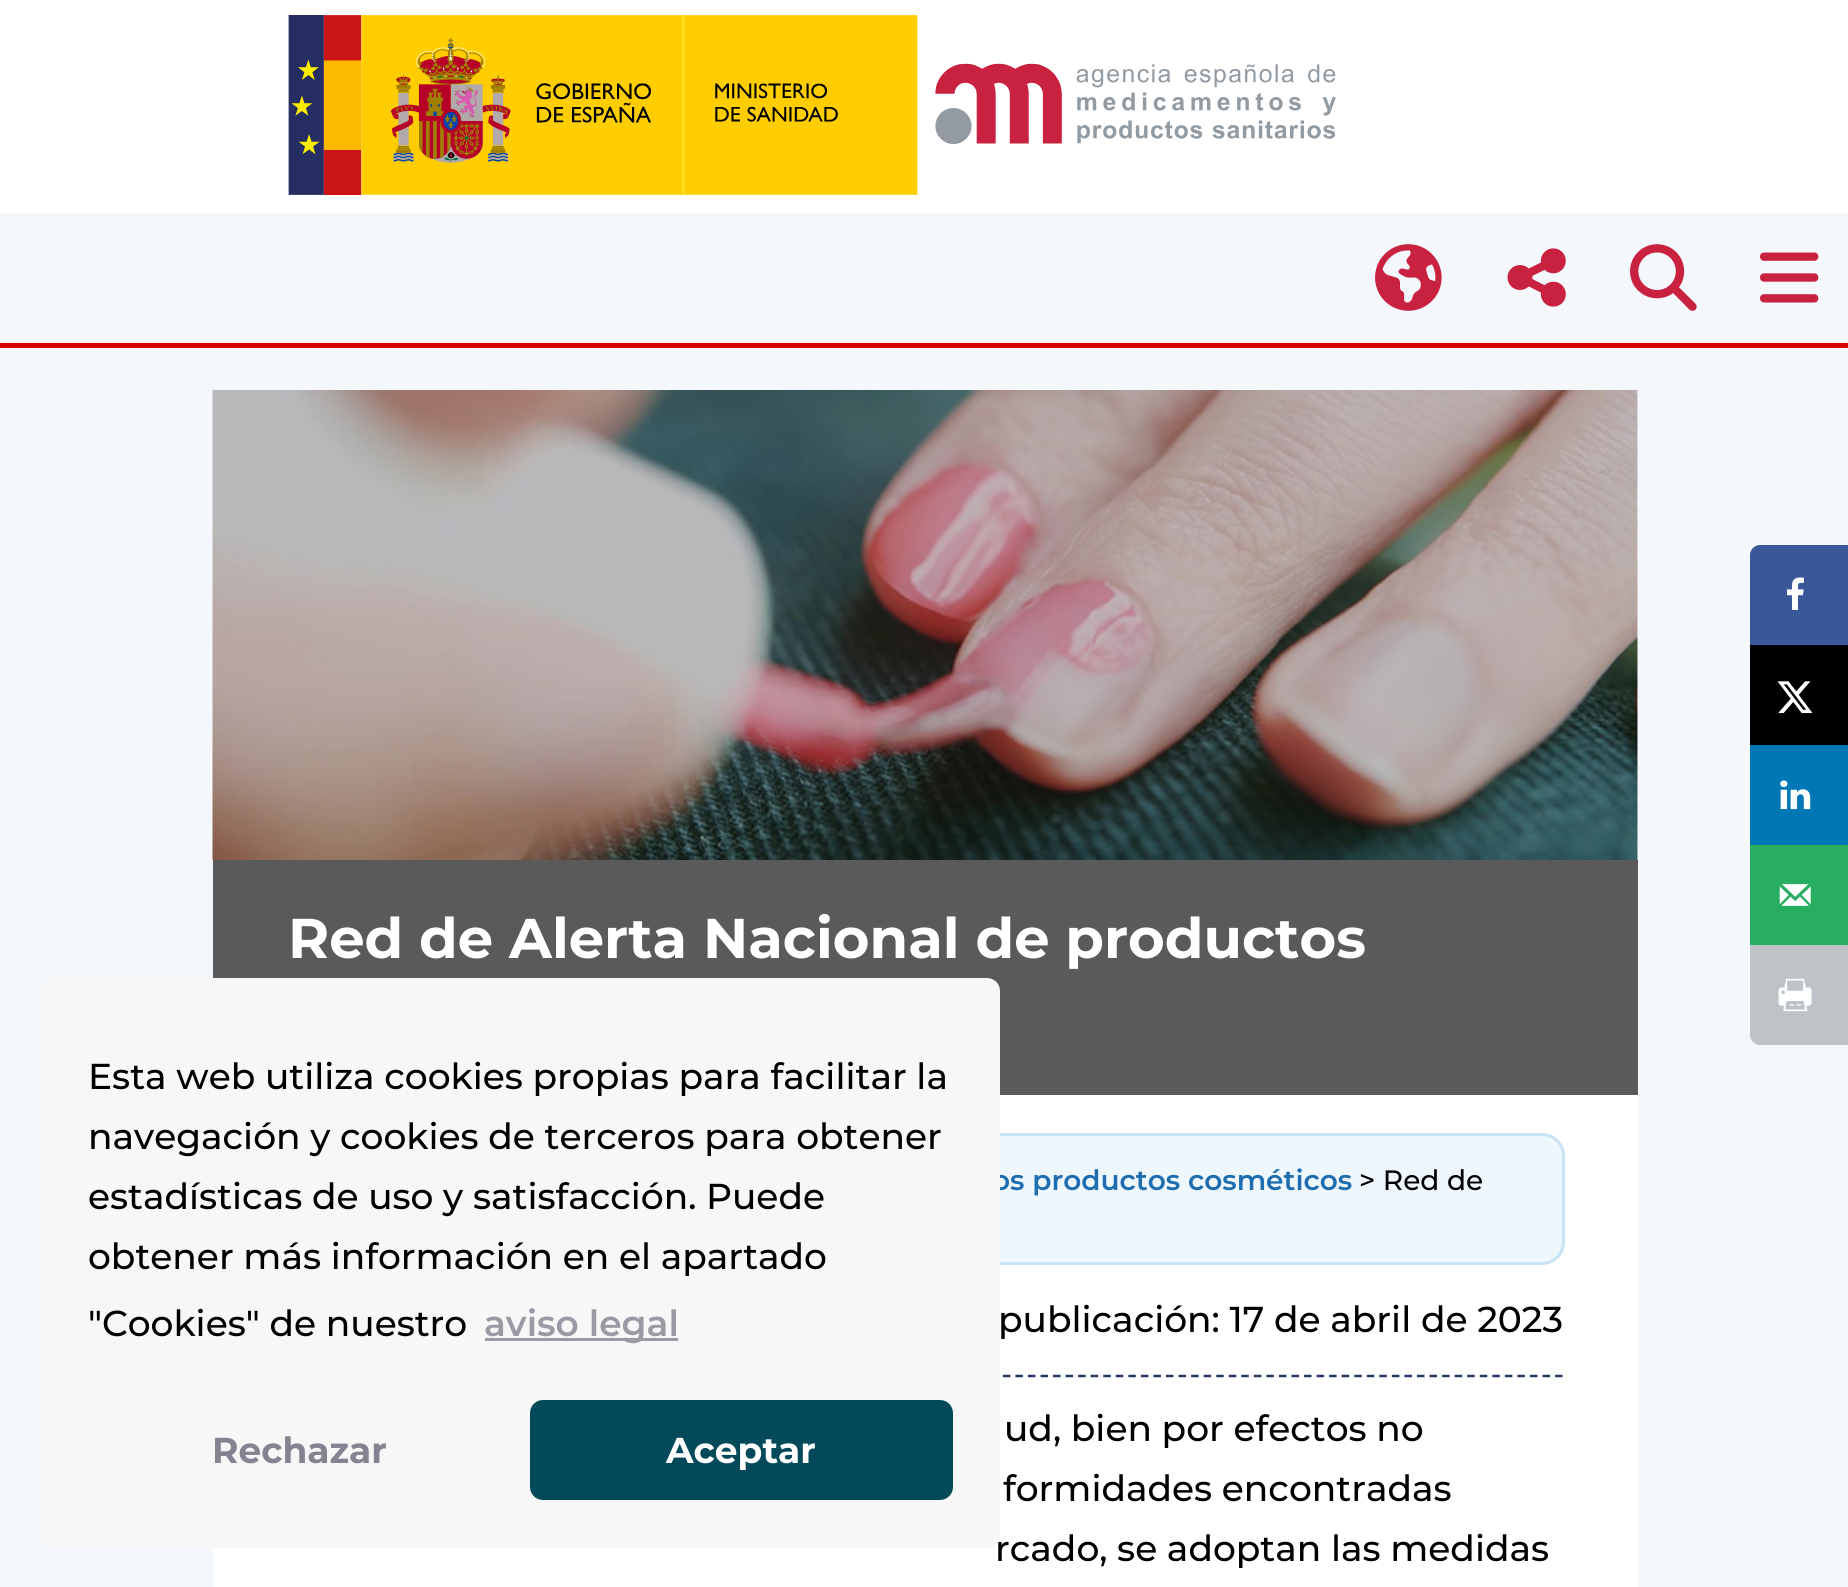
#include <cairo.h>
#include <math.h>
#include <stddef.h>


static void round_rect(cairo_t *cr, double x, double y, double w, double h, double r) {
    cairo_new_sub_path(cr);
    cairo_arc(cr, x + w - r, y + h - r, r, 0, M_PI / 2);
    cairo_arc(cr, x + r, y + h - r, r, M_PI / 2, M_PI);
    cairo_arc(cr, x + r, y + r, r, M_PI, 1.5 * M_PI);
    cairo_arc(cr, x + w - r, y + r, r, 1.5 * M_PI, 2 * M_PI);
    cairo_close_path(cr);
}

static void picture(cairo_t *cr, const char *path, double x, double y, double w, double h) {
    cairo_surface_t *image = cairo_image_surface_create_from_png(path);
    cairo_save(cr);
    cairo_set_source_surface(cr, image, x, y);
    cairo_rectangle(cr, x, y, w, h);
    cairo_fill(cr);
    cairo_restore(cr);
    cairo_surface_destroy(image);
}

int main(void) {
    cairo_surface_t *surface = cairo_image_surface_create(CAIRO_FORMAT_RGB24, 1848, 1587);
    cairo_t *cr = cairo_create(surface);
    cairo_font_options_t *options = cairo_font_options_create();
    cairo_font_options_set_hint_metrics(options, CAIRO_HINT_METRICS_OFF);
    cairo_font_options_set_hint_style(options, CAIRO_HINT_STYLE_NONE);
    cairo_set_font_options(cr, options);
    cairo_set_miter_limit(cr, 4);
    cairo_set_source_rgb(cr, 0.957, 0.969, 0.988);
    cairo_paint(cr);
    cairo_set_source_rgb(cr, 1, 1, 1);
    cairo_rectangle(cr, 0, 0, 1848, 213);
    cairo_fill(cr);
    picture(cr, "img1.png", 288, 15, 1048, 180);
    cairo_set_source_rgb(cr, 0.851, 0, 0.004);
    cairo_rectangle(cr, 0, 343, 1848, 5);
    cairo_fill(cr);
    picture(cr, "img2.png", 1375, 244, 67, 67);
    picture(cr, "img3.png", 1507, 248, 59, 59);
    picture(cr, "img4.png", 1630, 244, 67, 67);
    picture(cr, "img5.png", 1760, 252, 59, 51);
    cairo_set_source_rgb(cr, 0.227, 0.341, 0.604);
    cairo_new_path(cr);
    cairo_move_to(cr, 1760, 547.5);
    cairo_line_to(cr, 1847.5, 547.5);
    cairo_line_to(cr, 1847.5, 642.5);
    cairo_line_to(cr, 1752.5, 642.5);
    cairo_line_to(cr, 1752.5, 555);
    cairo_curve_to(cr, 1752.5, 551, 1756, 547.5, 1760, 547.5);
    cairo_close_path(cr);
    cairo_fill_preserve(cr);
    cairo_set_line_width(cr, 5);
    cairo_stroke(cr);
    picture(cr, "img6.png", 1787, 577, 17, 33);
    cairo_set_source_rgb(cr, 0, 0, 0);
    cairo_rectangle(cr, 1750, 645, 98, 100);
    cairo_fill(cr);
    picture(cr, "img7.png", 1777, 681, 36, 33);
    cairo_set_source_rgb(cr, 0, 0.467, 0.71);
    cairo_rectangle(cr, 1750, 745, 98, 100);
    cairo_fill(cr);
    picture(cr, "img8.png", 1780, 780, 31, 30);
    cairo_set_source_rgb(cr, 0.153, 0.682, 0.376);
    cairo_rectangle(cr, 1750, 845, 98, 100);
    cairo_fill(cr);
    picture(cr, "img9.png", 1779, 884, 32, 22);
    cairo_set_source_rgb(cr, 0.741, 0.765, 0.78);
    cairo_new_path(cr);
    cairo_move_to(cr, 1752.5, 947.5);
    cairo_line_to(cr, 1847.5, 947.5);
    cairo_line_to(cr, 1847.5, 1042.5);
    cairo_line_to(cr, 1760, 1042.5);
    cairo_curve_to(cr, 1756, 1042.5, 1752.5, 1039, 1752.5, 1035);
    cairo_close_path(cr);
    cairo_fill_preserve(cr);
    cairo_stroke(cr);
    picture(cr, "img10.png", 1778, 978, 34, 34);
    cairo_rectangle(cr, 232, 409, 1387, 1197);
    cairo_set_source_rgb(cr, 1, 1, 1);
    cairo_set_line_width(cr, 38);
    cairo_stroke(cr);
    cairo_rectangle(cr, 251, 1095, 1349, 492);
    cairo_fill(cr);
    picture(cr, "img11.png", 212, 390, 1426, 470);
    cairo_set_source_rgb(cr, 0.353, 0.353, 0.353);
    cairo_rectangle(cr, 213, 860, 1425, 235);
    cairo_fill(cr);
    cairo_select_font_face(cr, "Montserrat", CAIRO_FONT_SLANT_NORMAL, CAIRO_FONT_WEIGHT_BOLD);
    cairo_set_font_size(cr, 56);
    cairo_set_source_rgb(cr, 1, 1, 1);
    cairo_move_to(cr, 288, 958);
    cairo_show_text(cr, "Red de Alerta Nacional de productos");
    cairo_set_source_rgb(cr, 0.933, 0.965, 0.988);
    round_rect(cr, 288, 1135, 1275, 128, 20);
    cairo_fill(cr);
    round_rect(cr, 286.5, 1134.5, 1277, 129, 21.5);
    cairo_set_source_rgb(cr, 0.78, 0.89, 0.961);
    cairo_set_line_width(cr, 3);
    cairo_stroke(cr);
    cairo_select_font_face(cr, "Montserrat SemiBold", CAIRO_FONT_SLANT_NORMAL, CAIRO_FONT_WEIGHT_NORMAL);
    cairo_set_font_size(cr, 28);
    cairo_set_source_rgb(cr, 0.118, 0.427, 0.694);
    cairo_move_to(cr, 992, 1190);
    cairo_show_text(cr, "os productos cosméticos");
    cairo_select_font_face(cr, "Montserrat Medium", CAIRO_FONT_SLANT_NORMAL, CAIRO_FONT_WEIGHT_NORMAL);
    cairo_set_source_rgb(cr, 0, 0, 0);
    cairo_move_to(cr, 1359, 1190);
    cairo_show_text(cr, "> Red de");
    cairo_set_font_size(cr, 36);
    cairo_move_to(cr, 998, 1332);
    cairo_show_text(cr, "publicación: 17 de abril de 2023");
    cairo_new_path(cr);
    cairo_move_to(cr, 287.5, 1376);
    cairo_line_to(cr, 1562.5, 1376);
    cairo_set_source_rgb(cr, 0.141, 0.227, 0.392);
    cairo_set_line_width(cr, 2.5);
    cairo_set_dash(cr, (double[]){7.5, 5.05}, 2, 0);
    cairo_stroke(cr);
    cairo_set_source_rgb(cr, 0, 0, 0);
    cairo_move_to(cr, 1004, 1441);
    cairo_show_text(cr, "ud, bien por efectos no");
    cairo_move_to(cr, 1003, 1501);
    cairo_show_text(cr, "formidades encontradas");
    cairo_move_to(cr, 995, 1561);
    cairo_show_text(cr, "rcado, se adoptan las medidas");
    cairo_set_source_rgb(cr, 0.965, 0.965, 0.965);
    round_rect(cr, 40, 978, 960, 570, 13);
    cairo_fill(cr);
    cairo_set_source_rgb(cr, 0, 0, 0);
    cairo_move_to(cr, 88, 1089);
    cairo_show_text(cr, "Esta web utiliza cookies propias para facilitar la");
    cairo_move_to(cr, 88, 1149);
    cairo_show_text(cr, "navegación y cookies de terceros para obtener");
    cairo_move_to(cr, 88, 1209);
    cairo_show_text(cr, "estadísticas de uso y satisfacción.");
    cairo_move_to(cr, 706, 1209);
    cairo_show_text(cr, "Puede");
    cairo_move_to(cr, 88, 1269);
    cairo_show_text(cr, "obtener más información en el apartado");
    cairo_move_to(cr, 88, 1336);
    cairo_show_text(cr, "\"Cookies\" de nuestro");
    cairo_set_source_rgb(cr, 0.604, 0.604, 0.647);
    cairo_rectangle(cr, 485, 1338, 193, 3);
    cairo_fill(cr);
    cairo_select_font_face(cr, "Montserrat SemiBold", CAIRO_FONT_SLANT_NORMAL, CAIRO_FONT_WEIGHT_NORMAL);
    cairo_move_to(cr, 484, 1336);
    cairo_show_text(cr, "aviso legal");
    cairo_select_font_face(cr, "Montserrat", CAIRO_FONT_SLANT_NORMAL, CAIRO_FONT_WEIGHT_BOLD);
    cairo_set_source_rgb(cr, 0.514, 0.514, 0.569);
    cairo_move_to(cr, 212, 1463);
    cairo_show_text(cr, "Rechazar");
    cairo_set_source_rgb(cr, 0.008, 0.286, 0.349);
    round_rect(cr, 530, 1400, 423, 100, 13);
    cairo_fill(cr);
    cairo_set_source_rgb(cr, 1, 1, 1);
    cairo_move_to(cr, 666, 1463);
    cairo_show_text(cr, "Aceptar");
    cairo_surface_write_to_png(surface, "page.png");
    cairo_font_options_destroy(options);
    cairo_destroy(cr);
    cairo_surface_destroy(surface);
    return 0;
}
